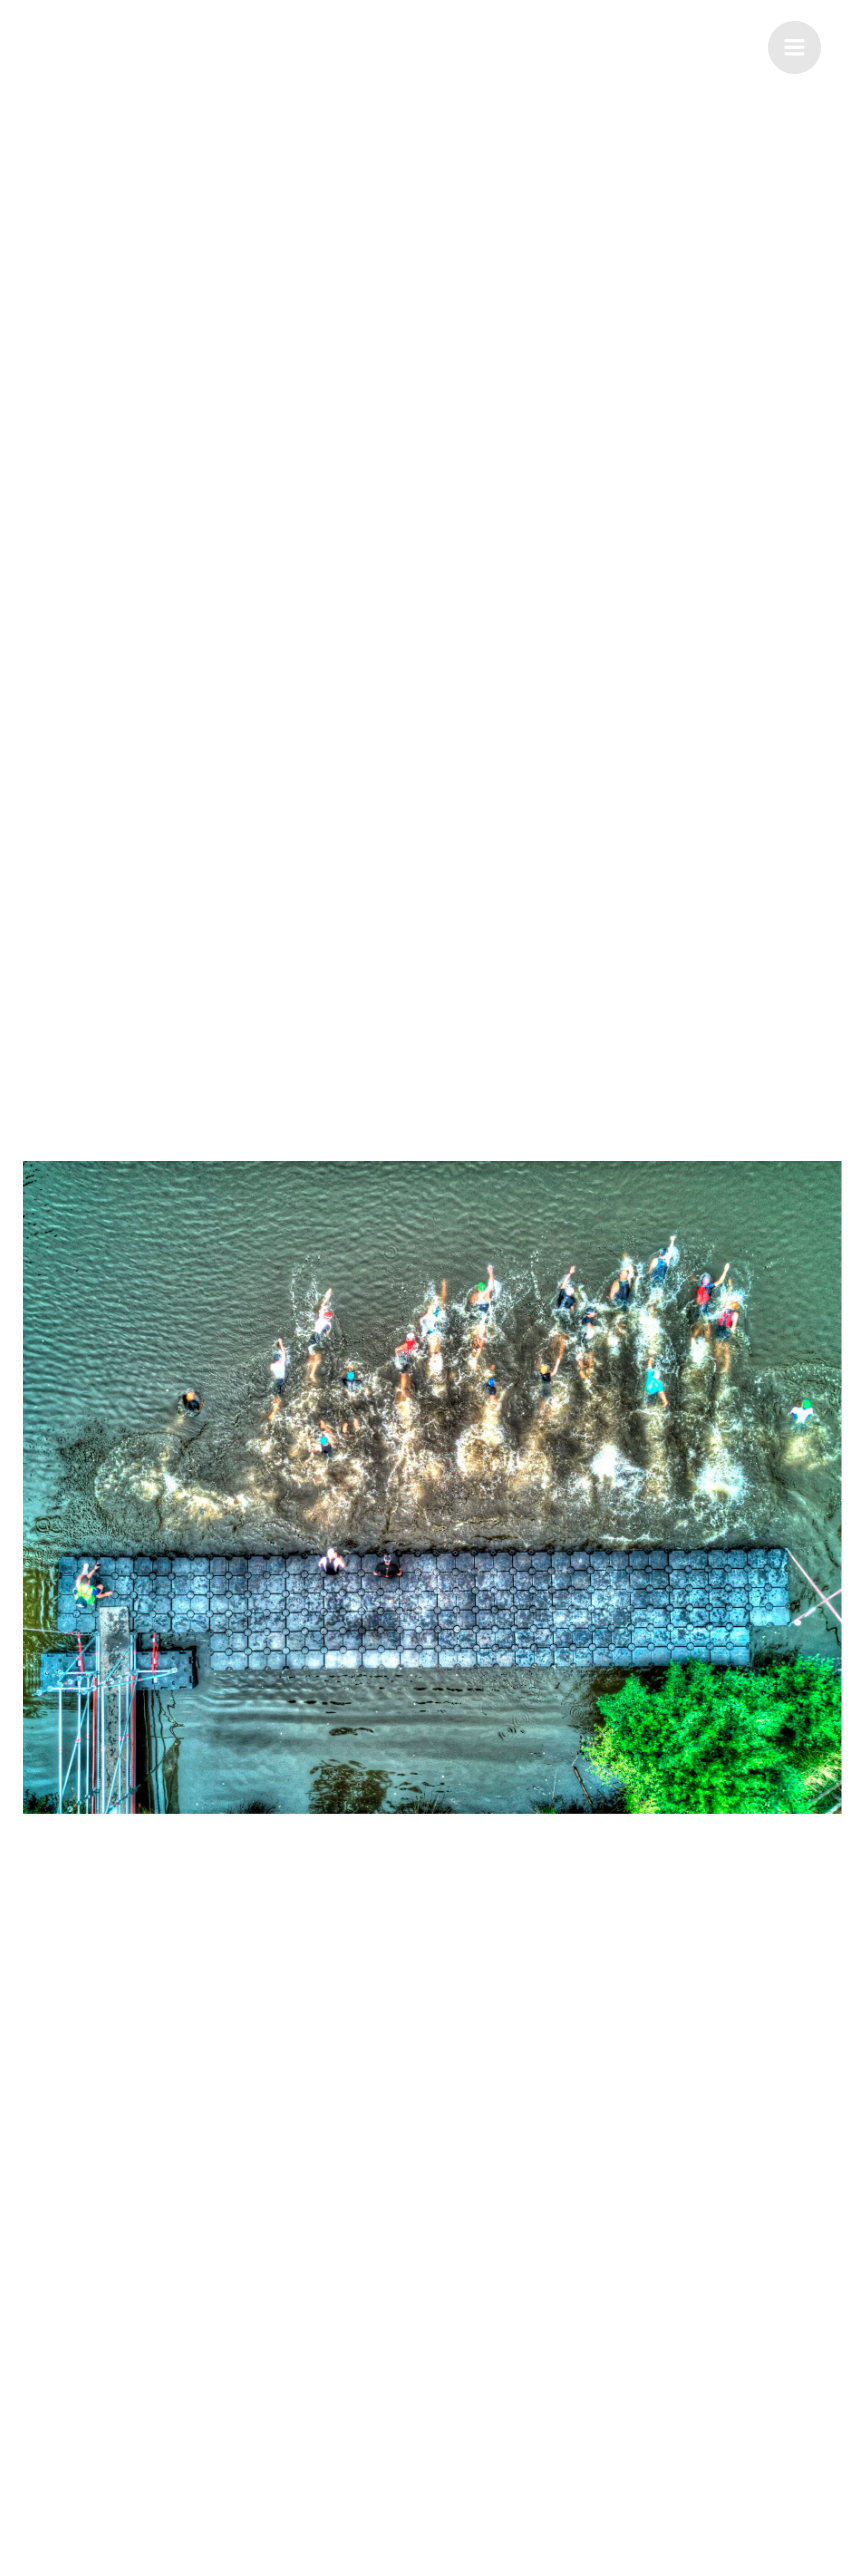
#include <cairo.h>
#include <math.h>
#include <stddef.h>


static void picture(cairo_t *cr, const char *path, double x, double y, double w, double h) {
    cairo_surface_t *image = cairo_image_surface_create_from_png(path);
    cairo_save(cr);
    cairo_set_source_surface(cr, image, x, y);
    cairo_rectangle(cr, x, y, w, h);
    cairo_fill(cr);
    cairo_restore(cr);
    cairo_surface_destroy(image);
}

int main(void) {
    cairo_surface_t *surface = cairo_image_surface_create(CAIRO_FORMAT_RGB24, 864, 2558);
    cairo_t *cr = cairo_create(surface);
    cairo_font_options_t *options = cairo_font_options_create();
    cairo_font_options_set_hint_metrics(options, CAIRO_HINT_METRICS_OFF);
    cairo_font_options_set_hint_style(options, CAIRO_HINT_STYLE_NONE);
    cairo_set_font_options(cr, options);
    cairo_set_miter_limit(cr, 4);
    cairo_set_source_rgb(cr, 1, 1, 1);
    cairo_paint(cr);
    cairo_set_source_rgb(cr, 0.902, 0.902, 0.902);
    cairo_arc(cr, 794.5, 47.5, 26.5, 0, 2 * M_PI);
    cairo_fill(cr);
    picture(cr, "img1.png", 784, 39, 21, 17);
    picture(cr, "img2.png", 23, 1161, 819, 653);
    cairo_surface_write_to_png(surface, "page.png");
    cairo_font_options_destroy(options);
    cairo_destroy(cr);
    cairo_surface_destroy(surface);
    return 0;
}
